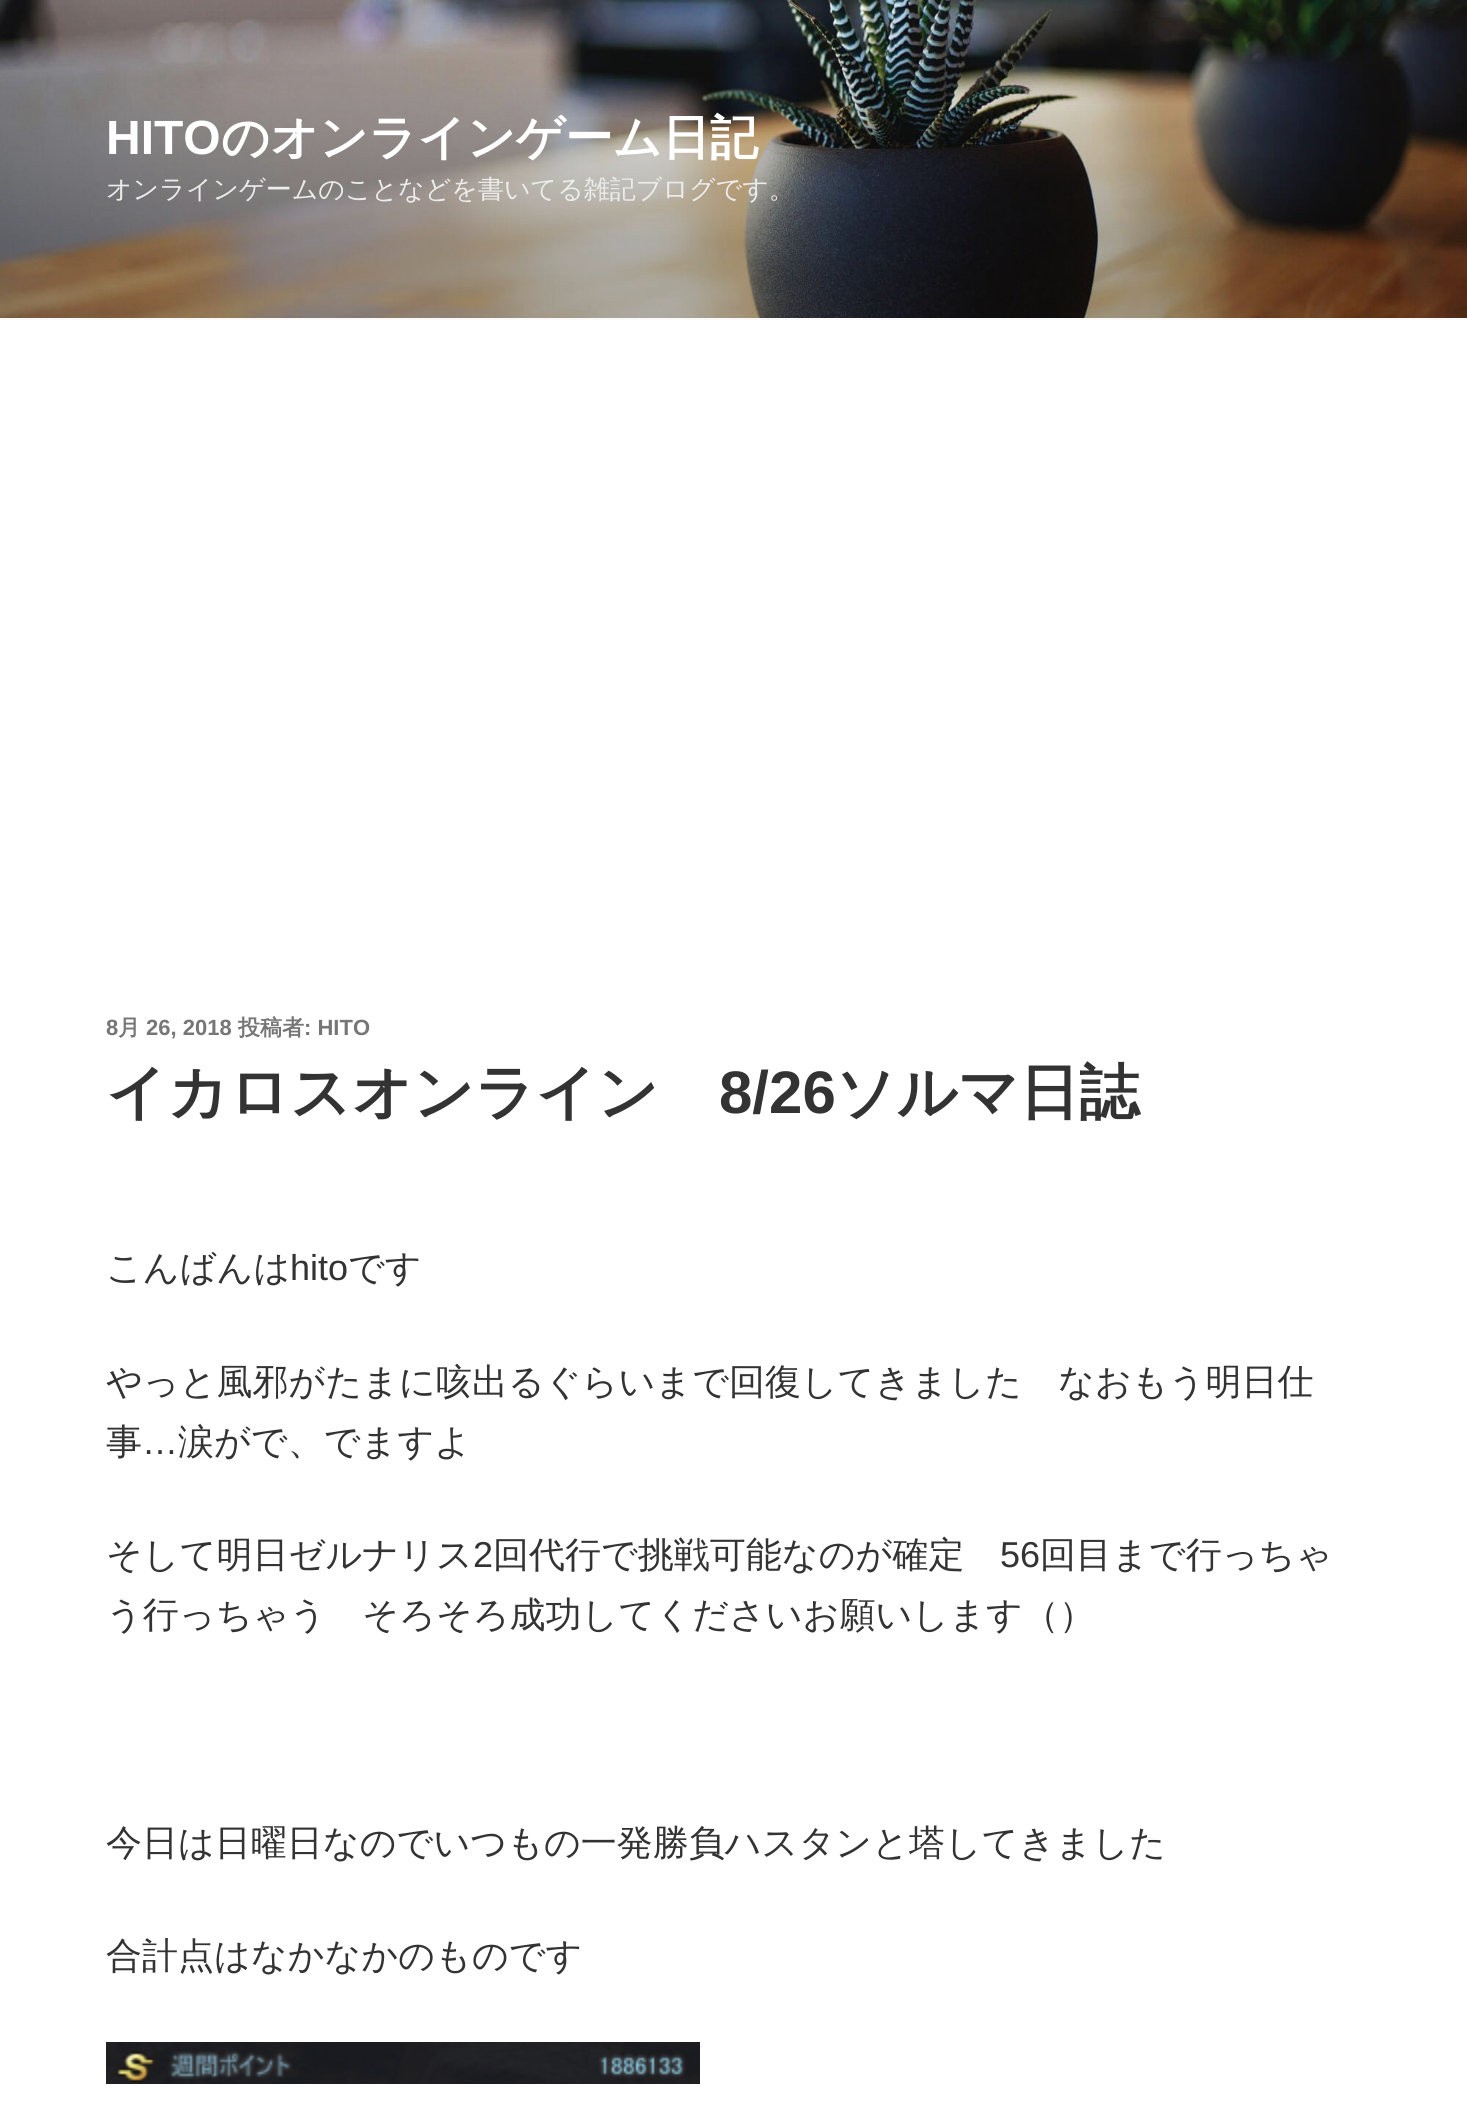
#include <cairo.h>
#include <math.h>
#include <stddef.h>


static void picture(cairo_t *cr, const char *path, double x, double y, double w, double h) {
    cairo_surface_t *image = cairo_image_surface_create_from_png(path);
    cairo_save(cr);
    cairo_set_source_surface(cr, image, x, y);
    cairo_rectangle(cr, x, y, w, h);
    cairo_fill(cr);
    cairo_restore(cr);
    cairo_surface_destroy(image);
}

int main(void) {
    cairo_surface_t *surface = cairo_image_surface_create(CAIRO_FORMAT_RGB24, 1467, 2102);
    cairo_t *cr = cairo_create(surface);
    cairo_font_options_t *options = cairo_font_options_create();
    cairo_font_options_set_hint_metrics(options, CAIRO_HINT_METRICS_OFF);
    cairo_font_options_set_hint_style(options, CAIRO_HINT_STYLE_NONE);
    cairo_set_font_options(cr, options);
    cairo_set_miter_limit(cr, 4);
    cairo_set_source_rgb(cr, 1, 1, 1);
    cairo_paint(cr);
    cairo_set_source_rgb(cr, 0.98, 0.98, 0.98);
    cairo_rectangle(cr, 0, 318, 1467, 2);
    cairo_fill(cr);
    picture(cr, "img1.png", 0, 0, 1467, 318);
    cairo_select_font_face(cr, "Liberation Sans", CAIRO_FONT_SLANT_NORMAL, CAIRO_FONT_WEIGHT_BOLD);
    cairo_set_font_size(cr, 48);
    cairo_set_source_rgb(cr, 1, 1, 1);
    cairo_move_to(cr, 106, 154);
    cairo_show_text(cr, "HITO");
    cairo_select_font_face(cr, "WenQuanYi Zen Hei", CAIRO_FONT_SLANT_NORMAL, CAIRO_FONT_WEIGHT_BOLD);
    cairo_move_to(cr, 221, 154);
    cairo_show_text(cr, "のオンラインゲーム日記");
    cairo_select_font_face(cr, "WenQuanYi Zen Hei Medium", CAIRO_FONT_SLANT_NORMAL, CAIRO_FONT_WEIGHT_NORMAL);
    cairo_set_font_size(cr, 26);
    cairo_set_source_rgb(cr, 0.925, 0.922, 0.918);
    cairo_move_to(cr, 106, 198);
    cairo_show_text(cr, "オンラインゲームのことなどを書いてる雑記ブログです。");
    cairo_select_font_face(cr, "Liberation Sans", CAIRO_FONT_SLANT_NORMAL, CAIRO_FONT_WEIGHT_BOLD);
    cairo_set_font_size(cr, 22);
    cairo_set_source_rgb(cr, 0.463, 0.463, 0.463);
    cairo_move_to(cr, 106, 1035);
    cairo_show_text(cr, "8");
    cairo_select_font_face(cr, "WenQuanYi Zen Hei", CAIRO_FONT_SLANT_NORMAL, CAIRO_FONT_WEIGHT_BOLD);
    cairo_move_to(cr, 118, 1035);
    cairo_show_text(cr, "月");
    cairo_select_font_face(cr, "Liberation Sans", CAIRO_FONT_SLANT_NORMAL, CAIRO_FONT_WEIGHT_BOLD);
    cairo_move_to(cr, 146, 1035);
    cairo_show_text(cr, "26, 2018");
    cairo_select_font_face(cr, "WenQuanYi Zen Hei", CAIRO_FONT_SLANT_NORMAL, CAIRO_FONT_WEIGHT_BOLD);
    cairo_move_to(cr, 238, 1035);
    cairo_show_text(cr, "投稿者");
    cairo_select_font_face(cr, "Liberation Sans", CAIRO_FONT_SLANT_NORMAL, CAIRO_FONT_WEIGHT_BOLD);
    cairo_move_to(cr, 304, 1035);
    cairo_show_text(cr, ": HITO");
    cairo_select_font_face(cr, "WenQuanYi Zen Hei", CAIRO_FONT_SLANT_NORMAL, CAIRO_FONT_WEIGHT_BOLD);
    cairo_set_font_size(cr, 60);
    cairo_set_source_rgb(cr, 0.2, 0.2, 0.2);
    cairo_move_to(cr, 106, 1113);
    cairo_show_text(cr, "イカロスオンライン");
    cairo_select_font_face(cr, "Liberation Sans", CAIRO_FONT_SLANT_NORMAL, CAIRO_FONT_WEIGHT_BOLD);
    cairo_move_to(cr, 719, 1113);
    cairo_show_text(cr, "8/26");
    cairo_select_font_face(cr, "WenQuanYi Zen Hei", CAIRO_FONT_SLANT_NORMAL, CAIRO_FONT_WEIGHT_BOLD);
    cairo_move_to(cr, 835, 1113);
    cairo_show_text(cr, "ソルマ日誌");
    cairo_select_font_face(cr, "WenQuanYi Zen Hei Medium", CAIRO_FONT_SLANT_NORMAL, CAIRO_FONT_WEIGHT_NORMAL);
    cairo_set_font_size(cr, 36);
    cairo_move_to(cr, 106, 1280);
    cairo_show_text(cr, "こんばんは");
    cairo_select_font_face(cr, "Liberation Sans", CAIRO_FONT_SLANT_NORMAL, CAIRO_FONT_WEIGHT_NORMAL);
    cairo_move_to(cr, 290, 1280);
    cairo_show_text(cr, "hito");
    cairo_select_font_face(cr, "WenQuanYi Zen Hei Medium", CAIRO_FONT_SLANT_NORMAL, CAIRO_FONT_WEIGHT_NORMAL);
    cairo_move_to(cr, 348, 1280);
    cairo_show_text(cr, "です");
    cairo_move_to(cr, 106, 1394);
    cairo_show_text(cr, "やっと風邪がたまに咳出るぐらいまで回復してきました　なおもう明日仕");
    cairo_move_to(cr, 106, 1454);
    cairo_show_text(cr, "事");
    cairo_select_font_face(cr, "Liberation Sans", CAIRO_FONT_SLANT_NORMAL, CAIRO_FONT_WEIGHT_NORMAL);
    cairo_move_to(cr, 142, 1454);
    cairo_show_text(cr, "…");
    cairo_select_font_face(cr, "WenQuanYi Zen Hei Medium", CAIRO_FONT_SLANT_NORMAL, CAIRO_FONT_WEIGHT_NORMAL);
    cairo_move_to(cr, 178, 1454);
    cairo_show_text(cr, "涙がで、でますよ");
    cairo_move_to(cr, 106, 1567);
    cairo_show_text(cr, "そして明日ゼルナリス");
    cairo_select_font_face(cr, "Liberation Sans", CAIRO_FONT_SLANT_NORMAL, CAIRO_FONT_WEIGHT_NORMAL);
    cairo_move_to(cr, 473, 1567);
    cairo_show_text(cr, "2");
    cairo_select_font_face(cr, "WenQuanYi Zen Hei Medium", CAIRO_FONT_SLANT_NORMAL, CAIRO_FONT_WEIGHT_NORMAL);
    cairo_move_to(cr, 493, 1567);
    cairo_show_text(cr, "回代行で挑戦可能なのが確定");
    cairo_select_font_face(cr, "Liberation Sans", CAIRO_FONT_SLANT_NORMAL, CAIRO_FONT_WEIGHT_NORMAL);
    cairo_move_to(cr, 1000, 1567);
    cairo_show_text(cr, "56");
    cairo_select_font_face(cr, "WenQuanYi Zen Hei Medium", CAIRO_FONT_SLANT_NORMAL, CAIRO_FONT_WEIGHT_NORMAL);
    cairo_move_to(cr, 1040, 1567);
    cairo_show_text(cr, "回目まで行っちゃ");
    cairo_move_to(cr, 106, 1627);
    cairo_show_text(cr, "う行っちゃう　そろそろ成功してくださいお願いします（）");
    cairo_move_to(cr, 106, 1855);
    cairo_show_text(cr, "今日は日曜日なのでいつもの一発勝負ハスタンと塔してきました");
    cairo_move_to(cr, 106, 1968);
    cairo_show_text(cr, "合計点はなかなかのものです");
    picture(cr, "img2.png", 106, 2042, 594, 42);
    cairo_surface_write_to_png(surface, "page.png");
    cairo_font_options_destroy(options);
    cairo_destroy(cr);
    cairo_surface_destroy(surface);
    return 0;
}
